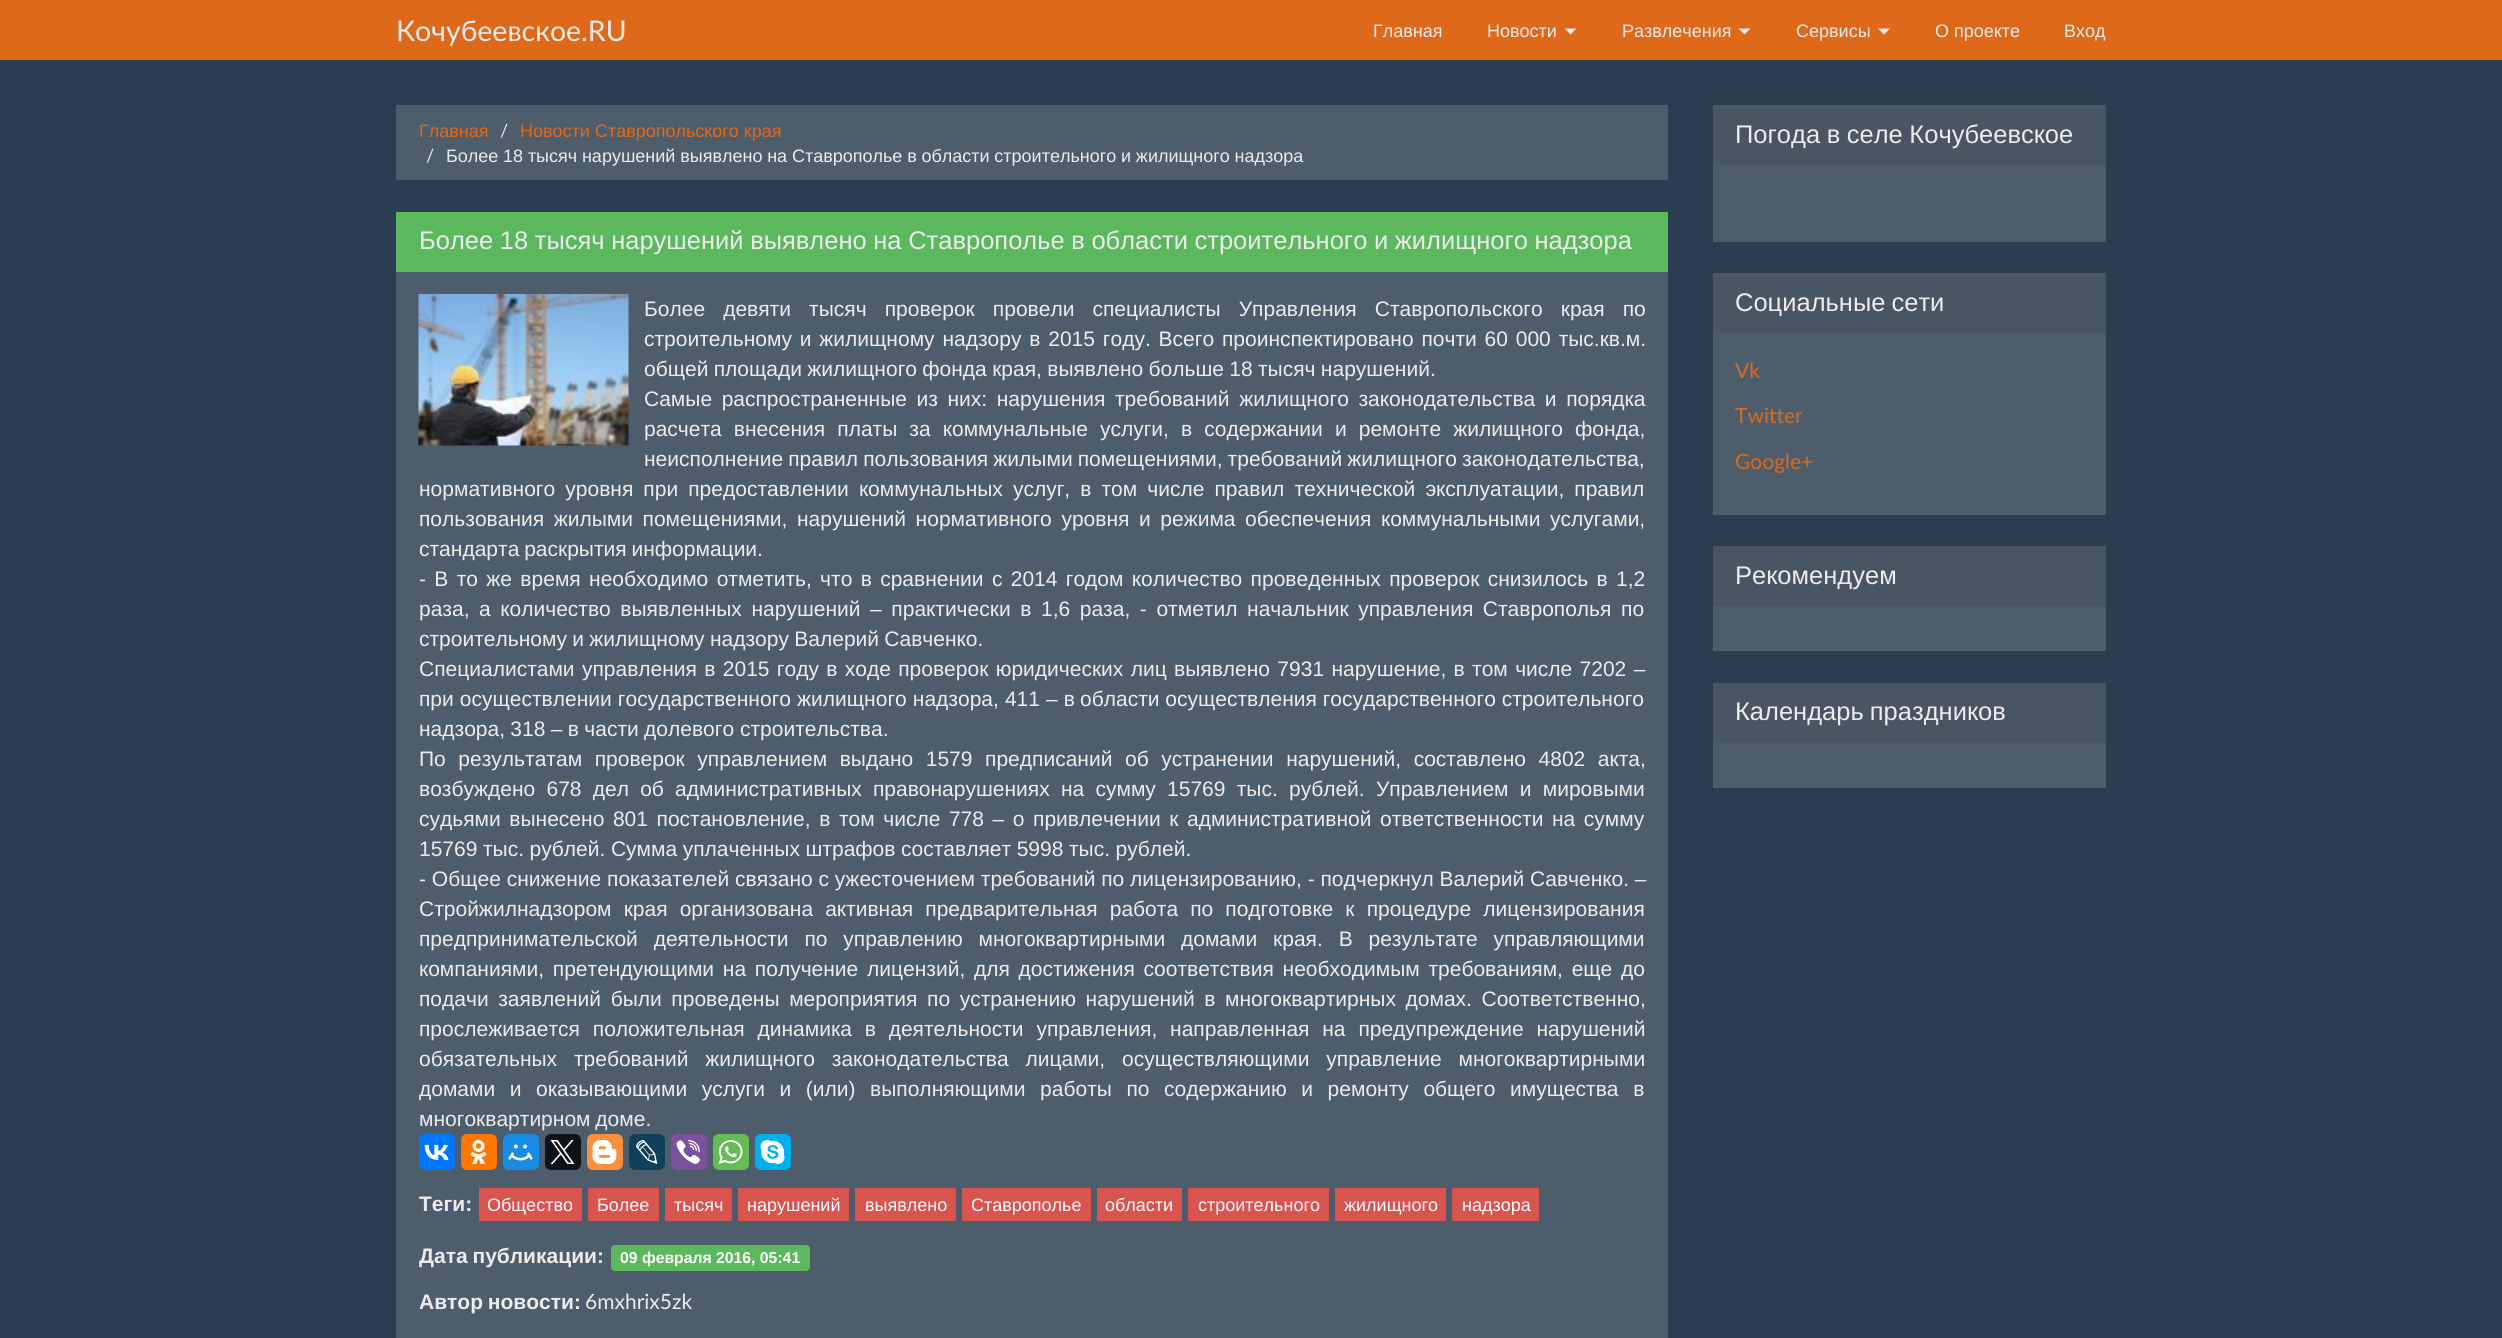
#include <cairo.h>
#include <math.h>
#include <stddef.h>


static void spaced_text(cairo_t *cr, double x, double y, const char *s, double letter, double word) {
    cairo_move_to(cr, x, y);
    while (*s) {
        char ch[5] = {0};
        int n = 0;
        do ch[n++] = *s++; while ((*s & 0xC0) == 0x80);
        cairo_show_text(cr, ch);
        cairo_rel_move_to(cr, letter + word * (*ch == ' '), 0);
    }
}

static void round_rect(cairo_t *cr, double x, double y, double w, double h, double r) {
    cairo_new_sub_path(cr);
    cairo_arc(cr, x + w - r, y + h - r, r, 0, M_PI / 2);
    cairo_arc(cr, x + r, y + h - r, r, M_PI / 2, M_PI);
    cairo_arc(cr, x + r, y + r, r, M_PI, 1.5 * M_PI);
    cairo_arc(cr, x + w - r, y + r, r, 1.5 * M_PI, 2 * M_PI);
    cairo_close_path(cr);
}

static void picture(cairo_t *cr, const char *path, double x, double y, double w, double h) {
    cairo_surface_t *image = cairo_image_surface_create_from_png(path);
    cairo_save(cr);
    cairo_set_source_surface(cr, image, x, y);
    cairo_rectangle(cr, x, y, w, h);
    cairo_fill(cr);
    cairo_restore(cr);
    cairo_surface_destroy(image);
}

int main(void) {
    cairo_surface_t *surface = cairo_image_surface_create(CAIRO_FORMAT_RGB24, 2502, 1338);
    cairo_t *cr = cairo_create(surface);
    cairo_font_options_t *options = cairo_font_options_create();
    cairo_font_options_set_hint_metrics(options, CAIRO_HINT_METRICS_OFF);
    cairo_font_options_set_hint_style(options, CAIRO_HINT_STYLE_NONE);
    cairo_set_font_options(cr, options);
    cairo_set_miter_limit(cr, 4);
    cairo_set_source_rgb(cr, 0.169, 0.243, 0.314);
    cairo_paint(cr);
    cairo_set_source_rgb(cr, 0.875, 0.412, 0.102);
    cairo_rectangle(cr, 0, 0, 2502, 60);
    cairo_fill(cr);
    cairo_select_font_face(cr, "Lato", CAIRO_FONT_SLANT_NORMAL, CAIRO_FONT_WEIGHT_NORMAL);
    cairo_set_font_size(cr, 28.5);
    cairo_set_source_rgb(cr, 0.922, 0.922, 0.922);
    cairo_move_to(cr, 396, 41);
    cairo_show_text(cr, "Кочубеевское.RU");
    cairo_select_font_face(cr, "Liberation Sans", CAIRO_FONT_SLANT_NORMAL, CAIRO_FONT_WEIGHT_NORMAL);
    cairo_set_font_size(cr, 18);
    cairo_move_to(cr, 1373, 37);
    cairo_show_text(cr, "Главная");
    cairo_move_to(cr, 1487, 37);
    cairo_show_text(cr, "Новости");
    cairo_new_path(cr);
    cairo_move_to(cr, 1564.5, 28.5);
    cairo_line_to(cr, 1576.5, 28.5);
    cairo_line_to(cr, 1570.5, 34.5);
    cairo_close_path(cr);
    cairo_fill(cr);
    cairo_move_to(cr, 1622, 37);
    cairo_show_text(cr, "Развлечения");
    cairo_new_path(cr);
    cairo_move_to(cr, 1738.5, 28.5);
    cairo_line_to(cr, 1750.5, 28.5);
    cairo_line_to(cr, 1744.5, 34.5);
    cairo_close_path(cr);
    cairo_fill(cr);
    cairo_move_to(cr, 1796, 37);
    cairo_show_text(cr, "Сервисы");
    cairo_new_path(cr);
    cairo_move_to(cr, 1878, 28.5);
    cairo_line_to(cr, 1890, 28.5);
    cairo_line_to(cr, 1884, 34.5);
    cairo_close_path(cr);
    cairo_fill(cr);
    cairo_move_to(cr, 1935, 37);
    cairo_show_text(cr, "О проекте");
    cairo_move_to(cr, 2064, 37);
    cairo_show_text(cr, "Вход");
    cairo_set_source_rgb(cr, 0.306, 0.365, 0.424);
    cairo_rectangle(cr, 396, 105, 1272, 75);
    cairo_fill(cr);
    cairo_set_source_rgb(cr, 0.875, 0.412, 0.102);
    cairo_move_to(cr, 419, 137);
    cairo_show_text(cr, "Главная");
    cairo_select_font_face(cr, "Lato", CAIRO_FONT_SLANT_NORMAL, CAIRO_FONT_WEIGHT_NORMAL);
    cairo_set_source_rgb(cr, 0.922, 0.922, 0.922);
    cairo_move_to(cr, 500, 137);
    cairo_show_text(cr, "/");
    cairo_select_font_face(cr, "Liberation Sans", CAIRO_FONT_SLANT_NORMAL, CAIRO_FONT_WEIGHT_NORMAL);
    cairo_set_source_rgb(cr, 0.875, 0.412, 0.102);
    cairo_move_to(cr, 520, 137);
    cairo_show_text(cr, "Новости Ставропольского края");
    cairo_select_font_face(cr, "Lato", CAIRO_FONT_SLANT_NORMAL, CAIRO_FONT_WEIGHT_NORMAL);
    cairo_set_source_rgb(cr, 0.922, 0.922, 0.922);
    cairo_move_to(cr, 426, 162);
    cairo_show_text(cr, "/");
    cairo_select_font_face(cr, "Liberation Sans", CAIRO_FONT_SLANT_NORMAL, CAIRO_FONT_WEIGHT_NORMAL);
    spaced_text(cr, 446, 162, "Более 18 тысяч нарушений выявлено на Ставрополье в области строительного и жилищного надзора", 0, -0.25);
    cairo_set_source_rgb(cr, 0.306, 0.365, 0.424);
    cairo_rectangle(cr, 396, 272, 1272, 1066);
    cairo_fill(cr);
    cairo_set_source_rgb(cr, 0.361, 0.722, 0.361);
    cairo_rectangle(cr, 396, 212, 1272, 60);
    cairo_fill(cr);
    cairo_set_font_size(cr, 25.5);
    cairo_set_source_rgb(cr, 0.922, 0.922, 0.922);
    spaced_text(cr, 419, 249, "Более 18 тысяч нарушений выявлено на Ставрополье в области строительного и жилищного надзора", 0, -0.5);
    picture(cr, "img1.png", 418, 294, 211, 152);
    cairo_set_font_size(cr, 21);
    spaced_text(cr, 644, 316, "Более девяти тысяч проверок провели специалисты Управления Ставропольского края по", 0, 12.25);
    spaced_text(cr, 644, 346, "строительному и жилищному надзору в 2015 году. Всего проинспектировано почти 60 000 тыс.кв.м.", 0, 2);
    spaced_text(cr, 644, 376, "общей площади жилищного фонда края, выявлено больше 18 тысяч нарушений.", 0, -0.5);
    spaced_text(cr, 644, 406, "Самые распространенные из них: нарушения требований жилищного законодательства и порядка", 0, 3.75);
    spaced_text(cr, 644, 436, "расчета внесения платы за коммунальные услуги, в содержании и ремонте жилищного фонда,", 0, 6.25);
    spaced_text(cr, 644, 466, "неисполнение правил пользования жилыми помещениями, требований жилищного законодательства,", 0, -0.75);
    spaced_text(cr, 419, 496, "нормативного уровня при предоставлении коммунальных услуг, в том числе правил технической эксплуатации, правил", 0, 4.25);
    spaced_text(cr, 419, 526, "пользования жилыми помещениями, нарушений нормативного уровня и режима обеспечения коммунальными услугами,", 0, 3.75);
    spaced_text(cr, 419, 556, "стандарта раскрытия информации.", 0, -1);
    spaced_text(cr, 419, 586, "- В то же время необходимо отметить, что в сравнении с 2014 годом количество проведенных проверок снизилось в 1,2", 0, 2.5);
    spaced_text(cr, 419, 616, "раза, а количество выявленных нарушений – практически в 1,6 раза, - отметил начальник управления Ставрополья по", 0, 3.75);
    spaced_text(cr, 419, 646, "строительному и жилищному надзору Валерий Савченко.", 0, -0.5);
    spaced_text(cr, 419, 676, "Специалистами управления в 2015 году в ходе проверок юридических лиц выявлено 7931 нарушение, в том числе 7202 –", 0, 1.5);
    spaced_text(cr, 419, 706, "при осуществлении государственного жилищного надзора, 411 – в", 0, 0.25);
    cairo_move_to(cr, 1080, 706);
    cairo_show_text(cr, "области осуществления государственного строительного");
    spaced_text(cr, 419, 736, "надзора, 318 – в части долевого", 0, -0.5);
    cairo_move_to(cr, 740, 736);
    cairo_show_text(cr, "строительства.");
    spaced_text(cr, 419, 766, "По результатам проверок управлением выдано 1579 предписаний об устранении нарушений, составлено 4802 акта,", 0, 6.75);
    spaced_text(cr, 419, 796, "возбуждено 678 дел об административных правонарушениях на сумму 15769 тыс. рублей. Управлением и мировыми", 0, 5.4);
    spaced_text(cr, 419, 826, "судьями вынесено 801 постановление, в том числе 778 – о привлечении к административной ответственности на сумму", 0, 2.75);
    spaced_text(cr, 419, 856, "15769 тыс. рублей. Сумма уплаченных штрафов составляет 5998 тыс. рублей.", 0, -0.25);
    cairo_move_to(cr, 419, 886);
    cairo_show_text(cr, "- Общее снижение показателей связано с ужесточением требований по лицензированию, - подчеркнул Валерий Савченко. –");
    spaced_text(cr, 419, 916, "Стройжилнадзором края организована активная предварительная работа по подготовке к процедуре лицензирования", 0, 6.25);
    spaced_text(cr, 419, 946, "предпринимательской деятельности по управлению многоквартирными домами края. В результате управляющими", 0, 10);
    spaced_text(cr, 419, 976, "компаниями, претендующими на получение лицензий, для достижения соответствия необходимым требованиям, еще до", 0, 2.9);
    spaced_text(cr, 419, 1006, "подачи заявлений были проведены мероприятия по устранению нарушений в многоквартирных домах. Соответственно,", 0, 3.75);
    spaced_text(cr, 419, 1036, "прослеживается положительная динамика в деятельности управления, направленная на предупреждение нарушений", 0, 7);
    spaced_text(cr, 419, 1066, "обязательных требований жилищного законодательства лицами, осуществляющими управление многоквартирными", 0, 11);
    spaced_text(cr, 419, 1096, "домами и оказывающими услуги и (или) выполняющими работы по содержанию и ремонту общего имущества в", 0, 8.75);
    spaced_text(cr, 419, 1126, "многоквартирном доме.", 0, -1);
    cairo_set_source_rgb(cr, 0, 0.467, 1);
    round_rect(cr, 419, 1134, 36, 36, 6);
    cairo_fill(cr);
    picture(cr, "img2.png", 424, 1144, 25, 16);
    cairo_set_source_rgb(cr, 1, 0.467, 0);
    round_rect(cr, 461, 1134, 36, 36, 6);
    cairo_fill(cr);
    picture(cr, "img3.png", 470, 1140, 17, 24);
    cairo_set_source_rgb(cr, 0.086, 0.553, 0.886);
    round_rect(cr, 503, 1134, 36, 36, 6);
    cairo_fill(cr);
    picture(cr, "img4.png", 508, 1144, 25, 17);
    cairo_set_source_rgb(cr, 0.059, 0.078, 0.098);
    round_rect(cr, 545, 1134, 36, 36, 6);
    cairo_fill(cr);
    picture(cr, "img5.png", 550, 1140, 25, 24);
    cairo_set_source_rgb(cr, 0.984, 0.561, 0.239);
    round_rect(cr, 587, 1134, 36, 36, 6);
    cairo_fill(cr);
    picture(cr, "img6.png", 592, 1140, 25, 24);
    cairo_set_source_rgb(cr, 0.051, 0.259, 0.353);
    round_rect(cr, 629, 1134, 36, 36, 6);
    cairo_fill(cr);
    picture(cr, "img7.png", 636, 1140, 22, 24);
    cairo_set_source_rgb(cr, 0.482, 0.318, 0.616);
    round_rect(cr, 671, 1134, 36, 36, 6);
    cairo_fill(cr);
    picture(cr, "img8.png", 676, 1140, 24, 24);
    cairo_set_source_rgb(cr, 0.396, 0.737, 0.329);
    round_rect(cr, 713, 1134, 36, 36, 6);
    cairo_fill(cr);
    picture(cr, "img9.png", 718, 1140, 25, 24);
    cairo_set_source_rgb(cr, 0, 0.686, 0.941);
    round_rect(cr, 755, 1134, 36, 36, 6);
    cairo_fill(cr);
    picture(cr, "img10.png", 760, 1140, 25, 24);
    cairo_select_font_face(cr, "Liberation Sans", CAIRO_FONT_SLANT_NORMAL, CAIRO_FONT_WEIGHT_BOLD);
    cairo_set_source_rgb(cr, 0.922, 0.922, 0.922);
    cairo_move_to(cr, 419, 1211);
    cairo_show_text(cr, "Теги:");
    cairo_set_source_rgb(cr, 0.851, 0.325, 0.31);
    cairo_rectangle(cr, 479, 1188, 103, 33);
    cairo_fill(cr);
    cairo_select_font_face(cr, "Liberation Sans", CAIRO_FONT_SLANT_NORMAL, CAIRO_FONT_WEIGHT_NORMAL);
    cairo_set_font_size(cr, 18);
    cairo_set_source_rgb(cr, 1, 1, 1);
    cairo_move_to(cr, 487, 1211);
    cairo_show_text(cr, "Общество");
    cairo_set_source_rgb(cr, 0.851, 0.325, 0.31);
    cairo_rectangle(cr, 588, 1188, 71, 33);
    cairo_fill(cr);
    cairo_set_source_rgb(cr, 1, 1, 1);
    cairo_move_to(cr, 597, 1211);
    cairo_show_text(cr, "Более");
    cairo_set_source_rgb(cr, 0.851, 0.325, 0.31);
    cairo_rectangle(cr, 665, 1188, 67, 33);
    cairo_fill(cr);
    cairo_set_source_rgb(cr, 1, 1, 1);
    cairo_move_to(cr, 674, 1211);
    cairo_show_text(cr, "тысяч");
    cairo_set_source_rgb(cr, 0.851, 0.325, 0.31);
    cairo_rectangle(cr, 738, 1188, 111, 33);
    cairo_fill(cr);
    cairo_set_source_rgb(cr, 1, 1, 1);
    cairo_move_to(cr, 747, 1211);
    cairo_show_text(cr, "нарушений");
    cairo_set_source_rgb(cr, 0.851, 0.325, 0.31);
    cairo_rectangle(cr, 855, 1188, 101, 33);
    cairo_fill(cr);
    cairo_set_source_rgb(cr, 1, 1, 1);
    cairo_move_to(cr, 865, 1211);
    cairo_show_text(cr, "выявлено");
    cairo_set_source_rgb(cr, 0.851, 0.325, 0.31);
    cairo_rectangle(cr, 962, 1188, 129, 33);
    cairo_fill(cr);
    cairo_set_source_rgb(cr, 1, 1, 1);
    cairo_move_to(cr, 971, 1211);
    cairo_show_text(cr, "Ставрополье");
    cairo_set_source_rgb(cr, 0.851, 0.325, 0.31);
    cairo_rectangle(cr, 1097, 1188, 85, 33);
    cairo_fill(cr);
    cairo_set_source_rgb(cr, 1, 1, 1);
    cairo_move_to(cr, 1105, 1211);
    cairo_show_text(cr, "области");
    cairo_set_source_rgb(cr, 0.851, 0.325, 0.31);
    cairo_rectangle(cr, 1188, 1188, 141, 33);
    cairo_fill(cr);
    cairo_set_source_rgb(cr, 1, 1, 1);
    cairo_move_to(cr, 1198, 1211);
    cairo_show_text(cr, "строительного");
    cairo_set_source_rgb(cr, 0.851, 0.325, 0.31);
    cairo_rectangle(cr, 1335, 1188, 111, 33);
    cairo_fill(cr);
    cairo_set_source_rgb(cr, 1, 1, 1);
    cairo_move_to(cr, 1344, 1211);
    cairo_show_text(cr, "жилищного");
    cairo_set_source_rgb(cr, 0.851, 0.325, 0.31);
    cairo_rectangle(cr, 1452, 1188, 87, 33);
    cairo_fill(cr);
    cairo_set_source_rgb(cr, 1, 1, 1);
    cairo_move_to(cr, 1462, 1211);
    cairo_show_text(cr, "надзора");
    cairo_select_font_face(cr, "Liberation Sans", CAIRO_FONT_SLANT_NORMAL, CAIRO_FONT_WEIGHT_BOLD);
    cairo_set_font_size(cr, 21);
    cairo_set_source_rgb(cr, 0.922, 0.922, 0.922);
    spaced_text(cr, 419, 1263, "Дата публикации:", 0, -1);
    cairo_set_source_rgb(cr, 0.361, 0.722, 0.361);
    round_rect(cr, 611, 1245, 199, 26, 4);
    cairo_fill(cr);
    cairo_set_font_size(cr, 15.75);
    cairo_set_source_rgb(cr, 1, 1, 1);
    cairo_move_to(cr, 620, 1263);
    cairo_show_text(cr, "09 февраля 2016, 05:41");
    cairo_set_font_size(cr, 21);
    cairo_set_source_rgb(cr, 0.922, 0.922, 0.922);
    spaced_text(cr, 419, 1309, "Автор новости:", 0, -1);
    cairo_select_font_face(cr, "Lato", CAIRO_FONT_SLANT_NORMAL, CAIRO_FONT_WEIGHT_NORMAL);
    cairo_move_to(cr, 585, 1309);
    cairo_show_text(cr, "6mxhrix5zk");
    cairo_set_source_rgb(cr, 0.306, 0.365, 0.424);
    cairo_rectangle(cr, 1713, 165, 393, 77);
    cairo_fill(cr);
    cairo_set_source_rgb(cr, 0.282, 0.333, 0.388);
    cairo_rectangle(cr, 1713, 105, 393, 60);
    cairo_fill(cr);
    cairo_select_font_face(cr, "Liberation Sans", CAIRO_FONT_SLANT_NORMAL, CAIRO_FONT_WEIGHT_NORMAL);
    cairo_set_font_size(cr, 25.5);
    cairo_set_source_rgb(cr, 0.922, 0.922, 0.922);
    spaced_text(cr, 1735, 143, "Погода в селе Кочубеевское", 0, -0.5);
    cairo_set_source_rgb(cr, 0.306, 0.365, 0.424);
    cairo_rectangle(cr, 1713, 333, 393, 182);
    cairo_fill(cr);
    cairo_set_source_rgb(cr, 0.282, 0.333, 0.388);
    cairo_rectangle(cr, 1713, 273, 393, 60);
    cairo_fill(cr);
    cairo_set_source_rgb(cr, 0.922, 0.922, 0.922);
    spaced_text(cr, 1735, 311, "Социальные сети", 0, -1);
    cairo_select_font_face(cr, "Lato", CAIRO_FONT_SLANT_NORMAL, CAIRO_FONT_WEIGHT_NORMAL);
    cairo_set_font_size(cr, 21);
    cairo_set_source_rgb(cr, 0.875, 0.412, 0.102);
    cairo_move_to(cr, 1735, 378);
    cairo_show_text(cr, "Vk");
    cairo_move_to(cr, 1735, 423);
    cairo_show_text(cr, "Twitter");
    cairo_move_to(cr, 1735, 469);
    cairo_show_text(cr, "Google+");
    cairo_set_source_rgb(cr, 0.306, 0.365, 0.424);
    cairo_rectangle(cr, 1713, 606, 393, 45);
    cairo_fill(cr);
    cairo_set_source_rgb(cr, 0.282, 0.333, 0.388);
    cairo_rectangle(cr, 1713, 546, 393, 60);
    cairo_fill(cr);
    cairo_select_font_face(cr, "Liberation Sans", CAIRO_FONT_SLANT_NORMAL, CAIRO_FONT_WEIGHT_NORMAL);
    cairo_set_font_size(cr, 25.5);
    cairo_set_source_rgb(cr, 0.922, 0.922, 0.922);
    cairo_move_to(cr, 1735, 584);
    cairo_show_text(cr, "Рекомендуем");
    cairo_set_source_rgb(cr, 0.306, 0.365, 0.424);
    cairo_rectangle(cr, 1713, 743, 393, 45);
    cairo_fill(cr);
    cairo_set_source_rgb(cr, 0.282, 0.333, 0.388);
    cairo_rectangle(cr, 1713, 683, 393, 60);
    cairo_fill(cr);
    cairo_set_source_rgb(cr, 0.922, 0.922, 0.922);
    spaced_text(cr, 1735, 720, "Календарь праздников", 0, -1);
    cairo_surface_write_to_png(surface, "page.png");
    cairo_font_options_destroy(options);
    cairo_destroy(cr);
    cairo_surface_destroy(surface);
    return 0;
}
